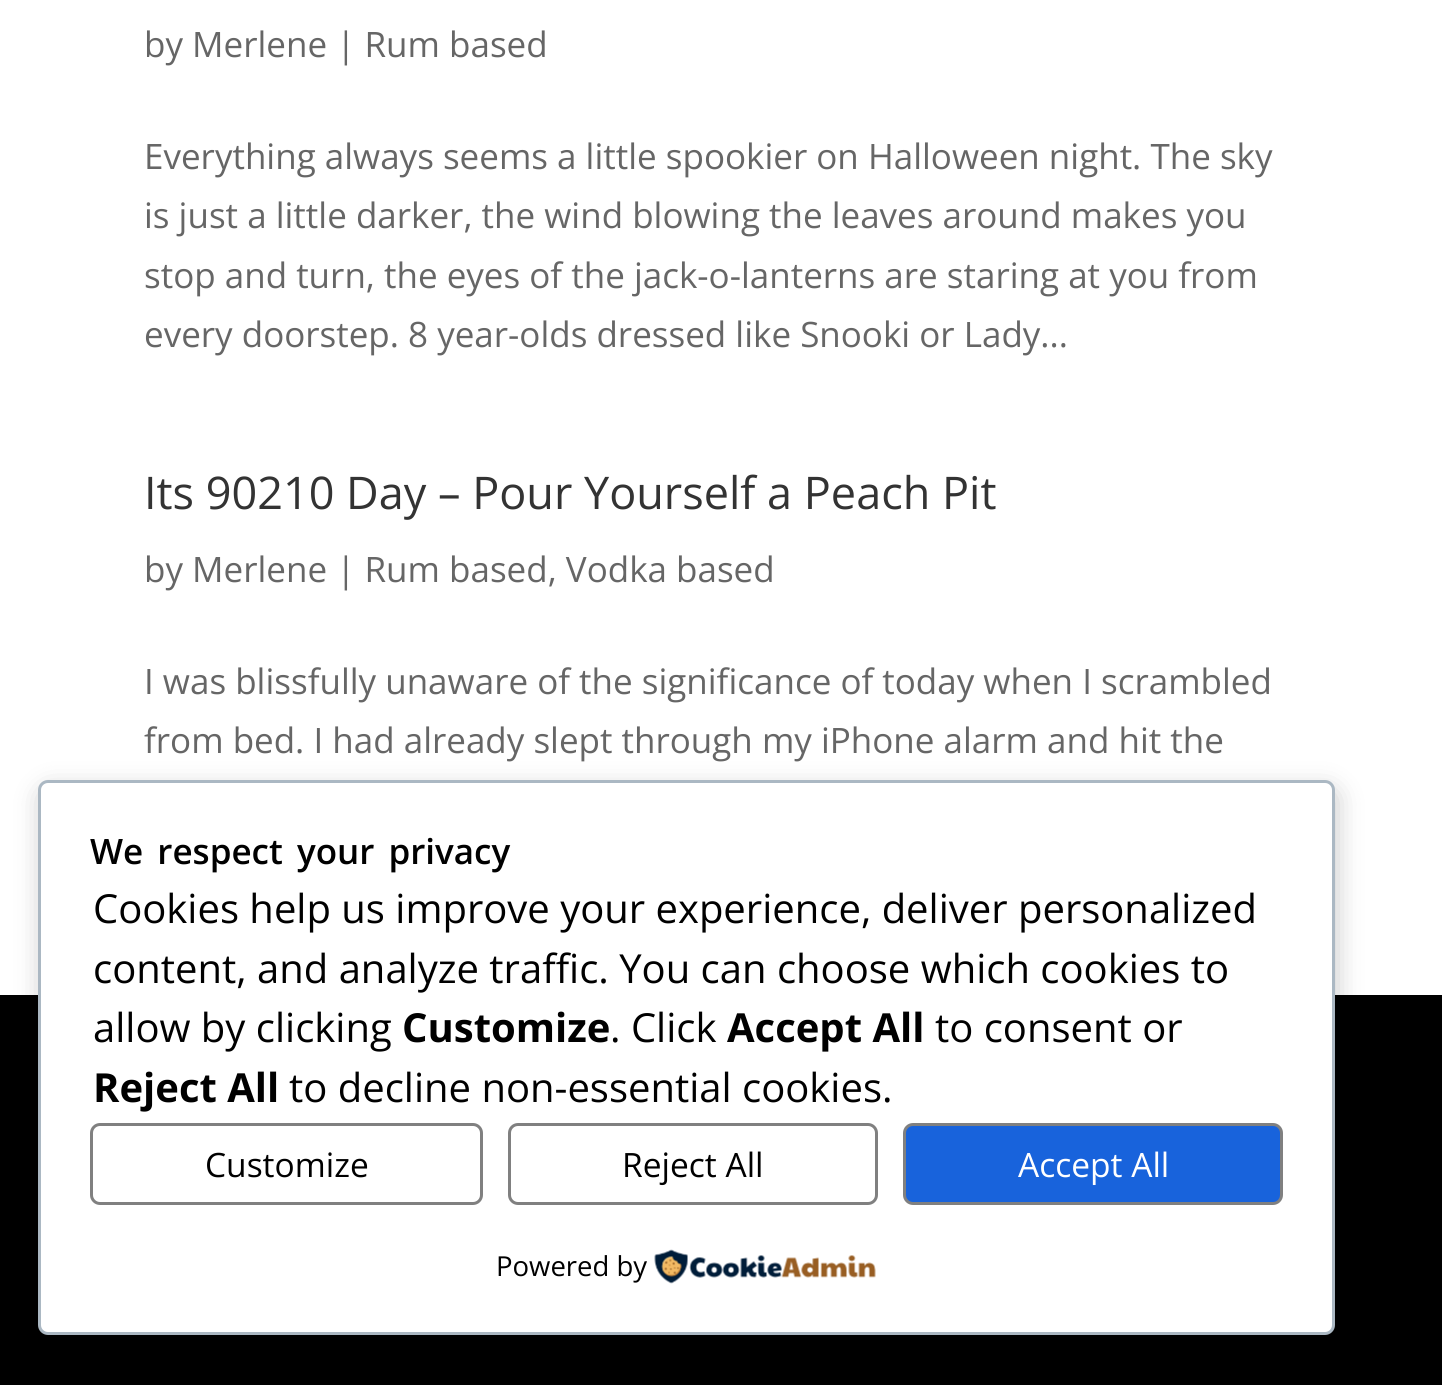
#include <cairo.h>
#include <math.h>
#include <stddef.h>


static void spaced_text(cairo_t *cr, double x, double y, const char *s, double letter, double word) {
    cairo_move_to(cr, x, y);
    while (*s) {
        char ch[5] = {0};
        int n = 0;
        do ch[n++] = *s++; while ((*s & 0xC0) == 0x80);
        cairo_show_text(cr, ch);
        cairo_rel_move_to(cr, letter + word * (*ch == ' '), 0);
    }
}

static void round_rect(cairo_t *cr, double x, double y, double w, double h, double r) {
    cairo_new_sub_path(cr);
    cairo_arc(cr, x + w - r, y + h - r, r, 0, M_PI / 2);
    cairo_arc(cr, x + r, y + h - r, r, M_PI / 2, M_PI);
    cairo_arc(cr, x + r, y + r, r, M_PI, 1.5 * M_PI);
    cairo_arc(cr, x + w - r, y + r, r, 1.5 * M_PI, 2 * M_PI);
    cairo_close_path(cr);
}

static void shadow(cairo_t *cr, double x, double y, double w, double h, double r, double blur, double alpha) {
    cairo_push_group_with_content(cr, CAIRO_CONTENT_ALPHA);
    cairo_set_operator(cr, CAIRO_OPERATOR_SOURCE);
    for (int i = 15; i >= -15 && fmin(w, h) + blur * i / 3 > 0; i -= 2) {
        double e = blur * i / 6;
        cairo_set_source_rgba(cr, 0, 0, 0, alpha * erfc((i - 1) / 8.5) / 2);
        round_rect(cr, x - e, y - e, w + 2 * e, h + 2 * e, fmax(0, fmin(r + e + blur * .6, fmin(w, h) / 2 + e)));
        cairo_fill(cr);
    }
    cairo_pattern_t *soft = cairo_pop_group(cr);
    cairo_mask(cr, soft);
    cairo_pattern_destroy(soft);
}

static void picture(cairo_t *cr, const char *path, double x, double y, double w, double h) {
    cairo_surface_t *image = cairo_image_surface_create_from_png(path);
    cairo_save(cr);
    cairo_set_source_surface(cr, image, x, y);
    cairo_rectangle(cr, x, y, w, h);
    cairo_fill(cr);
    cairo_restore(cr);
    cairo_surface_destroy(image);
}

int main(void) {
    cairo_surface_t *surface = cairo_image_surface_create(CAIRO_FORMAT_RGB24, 1442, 1385);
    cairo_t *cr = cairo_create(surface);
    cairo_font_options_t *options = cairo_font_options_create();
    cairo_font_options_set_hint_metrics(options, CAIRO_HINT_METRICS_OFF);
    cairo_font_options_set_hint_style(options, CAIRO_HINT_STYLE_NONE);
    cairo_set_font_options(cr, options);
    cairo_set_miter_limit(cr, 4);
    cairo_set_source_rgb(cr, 1, 1, 1);
    cairo_paint(cr);
    cairo_select_font_face(cr, "Open Sans", CAIRO_FONT_SLANT_NORMAL, CAIRO_FONT_WEIGHT_NORMAL);
    cairo_set_font_size(cr, 35);
    cairo_set_source_rgb(cr, 0.4, 0.4, 0.4);
    cairo_move_to(cr, 144, 57);
    cairo_show_text(cr, "by Merlene | Rum based");
    cairo_move_to(cr, 144, 169);
    cairo_show_text(cr, "Everything always seems a little spookier on Halloween night. The sky");
    cairo_move_to(cr, 144, 228);
    cairo_show_text(cr, "is just a little darker, the wind blowing the leaves around makes you");
    cairo_move_to(cr, 144, 288);
    cairo_show_text(cr, "stop and turn, the eyes of the jack-o-lanterns are staring at you from");
    cairo_move_to(cr, 144, 347);
    cairo_show_text(cr, "every doorstep. 8 year-olds dressed like Snooki or Lady...");
    cairo_set_font_size(cr, 45);
    cairo_set_source_rgb(cr, 0.2, 0.2, 0.2);
    cairo_move_to(cr, 144, 509);
    cairo_show_text(cr, "Its 90210 Day – Pour Yourself a Peach Pit");
    cairo_set_font_size(cr, 35);
    cairo_set_source_rgb(cr, 0.4, 0.4, 0.4);
    cairo_move_to(cr, 144, 582);
    cairo_show_text(cr, "by Merlene | Rum based, Vodka based");
    cairo_move_to(cr, 144, 694);
    cairo_show_text(cr, "I was blissfully unaware of the significance of today when I scrambled");
    cairo_move_to(cr, 144, 753);
    cairo_show_text(cr, "from bed. I had already slept through my iPhone alarm and hit the");
    cairo_set_source_rgb(cr, 0, 0, 0);
    cairo_rectangle(cr, 0, 995, 1442, 390);
    cairo_fill(cr);
    cairo_set_source_rgb(cr, 0, 0, 0);
    shadow(cr, 40, 788, 1298, 555, 10, 12.5, 0.2);
    cairo_set_source_rgb(cr, 1, 1, 1);
    round_rect(cr, 39.5, 781.5, 1294, 552, 8.5);
    cairo_fill_preserve(cr);
    cairo_set_source_rgb(cr, 0.671, 0.722, 0.765);
    cairo_set_line_width(cr, 3);
    cairo_stroke(cr);
    cairo_select_font_face(cr, "Open Sans SemiBold", CAIRO_FONT_SLANT_NORMAL, CAIRO_FONT_WEIGHT_NORMAL);
    cairo_set_source_rgb(cr, 0, 0, 0);
    spaced_text(cr, 90, 864, "We respect your privacy", 0, 5);
    cairo_select_font_face(cr, "Open Sans", CAIRO_FONT_SLANT_NORMAL, CAIRO_FONT_WEIGHT_NORMAL);
    cairo_set_font_size(cr, 40);
    cairo_move_to(cr, 93, 923);
    cairo_show_text(cr, "Cookies help us improve your experience, deliver personalized");
    cairo_move_to(cr, 93, 983);
    cairo_show_text(cr, "content, and analyze traffic. You can choose which cookies to");
    cairo_move_to(cr, 93, 1042);
    cairo_show_text(cr, "allow by clicking");
    cairo_select_font_face(cr, "Open Sans", CAIRO_FONT_SLANT_NORMAL, CAIRO_FONT_WEIGHT_BOLD);
    cairo_move_to(cr, 402, 1042);
    cairo_show_text(cr, "Customize");
    cairo_select_font_face(cr, "Open Sans", CAIRO_FONT_SLANT_NORMAL, CAIRO_FONT_WEIGHT_NORMAL);
    cairo_move_to(cr, 610, 1042);
    cairo_show_text(cr, ". Click");
    cairo_select_font_face(cr, "Open Sans", CAIRO_FONT_SLANT_NORMAL, CAIRO_FONT_WEIGHT_BOLD);
    cairo_move_to(cr, 727, 1042);
    cairo_show_text(cr, "Accept All");
    cairo_select_font_face(cr, "Open Sans", CAIRO_FONT_SLANT_NORMAL, CAIRO_FONT_WEIGHT_NORMAL);
    cairo_move_to(cr, 935, 1042);
    cairo_show_text(cr, "to consent or");
    cairo_select_font_face(cr, "Open Sans", CAIRO_FONT_SLANT_NORMAL, CAIRO_FONT_WEIGHT_BOLD);
    cairo_move_to(cr, 93, 1102);
    cairo_show_text(cr, "Reject All");
    cairo_select_font_face(cr, "Open Sans", CAIRO_FONT_SLANT_NORMAL, CAIRO_FONT_WEIGHT_NORMAL);
    cairo_move_to(cr, 289, 1102);
    cairo_show_text(cr, "to decline non-essential cookies.");
    round_rect(cr, 91.5, 1124.5, 390, 79, 8.5);
    cairo_set_source_rgb(cr, 0.502, 0.502, 0.502);
    cairo_stroke(cr);
    cairo_set_font_size(cr, 33.5);
    cairo_set_source_rgb(cr, 0, 0, 0);
    cairo_move_to(cr, 205, 1177);
    cairo_show_text(cr, "Customize");
    round_rect(cr, 509.5, 1124.5, 367, 79, 8.5);
    cairo_set_source_rgb(cr, 0.502, 0.502, 0.502);
    cairo_stroke(cr);
    cairo_set_source_rgb(cr, 0, 0, 0);
    cairo_move_to(cr, 622, 1177);
    cairo_show_text(cr, "Reject All");
    cairo_set_source_rgb(cr, 0.094, 0.388, 0.863);
    round_rect(cr, 904.5, 1124.5, 377, 79, 8.5);
    cairo_fill_preserve(cr);
    cairo_set_source_rgb(cr, 0.502, 0.502, 0.502);
    cairo_stroke(cr);
    cairo_set_source_rgb(cr, 1, 1, 1);
    cairo_move_to(cr, 1018, 1177);
    cairo_show_text(cr, "Accept All");
    cairo_set_font_size(cr, 27.5);
    cairo_set_source_rgb(cr, 0, 0, 0);
    cairo_move_to(cr, 496, 1276);
    cairo_show_text(cr, "Powered by");
    picture(cr, "img1.png", 654, 1249, 222, 35);
    cairo_surface_write_to_png(surface, "page.png");
    cairo_font_options_destroy(options);
    cairo_destroy(cr);
    cairo_surface_destroy(surface);
    return 0;
}
